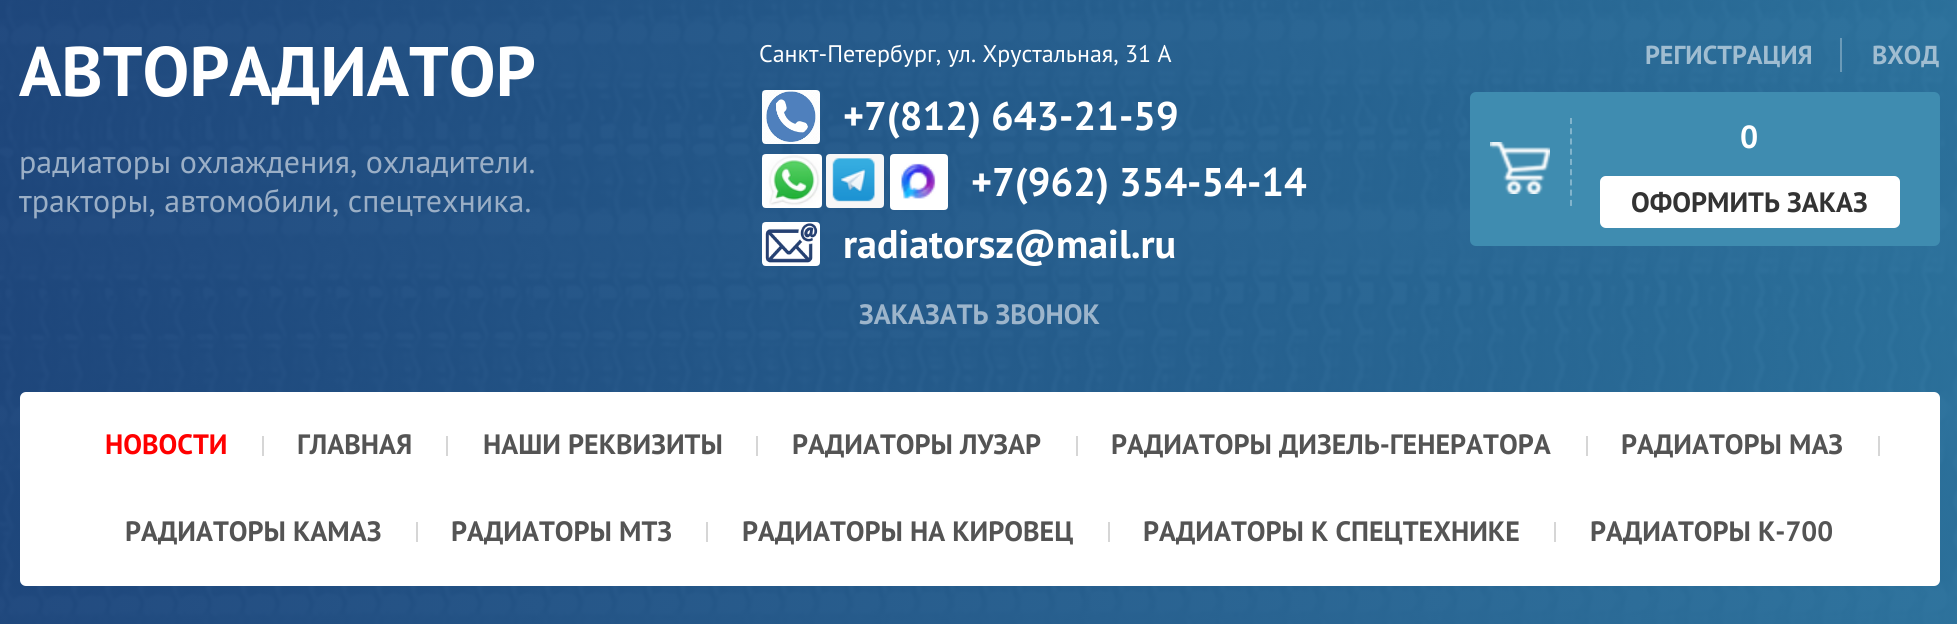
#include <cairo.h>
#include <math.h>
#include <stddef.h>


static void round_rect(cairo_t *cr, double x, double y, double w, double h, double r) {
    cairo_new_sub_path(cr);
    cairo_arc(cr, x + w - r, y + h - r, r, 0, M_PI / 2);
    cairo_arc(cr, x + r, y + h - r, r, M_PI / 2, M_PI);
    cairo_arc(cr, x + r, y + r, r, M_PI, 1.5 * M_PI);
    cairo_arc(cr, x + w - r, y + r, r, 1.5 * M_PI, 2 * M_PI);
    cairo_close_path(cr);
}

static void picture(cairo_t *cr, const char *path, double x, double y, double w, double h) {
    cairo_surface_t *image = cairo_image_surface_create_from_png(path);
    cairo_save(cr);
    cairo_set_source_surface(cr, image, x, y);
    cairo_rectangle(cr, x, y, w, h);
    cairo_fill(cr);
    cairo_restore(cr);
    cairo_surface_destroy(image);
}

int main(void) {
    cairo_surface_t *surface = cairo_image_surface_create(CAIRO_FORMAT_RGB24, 1957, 624);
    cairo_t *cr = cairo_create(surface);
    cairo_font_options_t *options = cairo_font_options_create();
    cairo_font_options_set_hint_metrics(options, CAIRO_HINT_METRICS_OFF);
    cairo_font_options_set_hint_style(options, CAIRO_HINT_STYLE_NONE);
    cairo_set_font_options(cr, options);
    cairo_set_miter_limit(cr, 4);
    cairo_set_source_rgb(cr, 1, 1, 1);
    cairo_paint(cr);
    picture(cr, "img1.png", 0, 0, 1957, 624);
    cairo_select_font_face(cr, "PT Sans", CAIRO_FONT_SLANT_NORMAL, CAIRO_FONT_WEIGHT_BOLD);
    cairo_set_font_size(cr, 70);
    cairo_set_source_rgb(cr, 1, 1, 1);
    cairo_move_to(cr, 19, 96);
    cairo_show_text(cr, "АВТОРАДИАТОР");
    cairo_select_font_face(cr, "PT Sans", CAIRO_FONT_SLANT_NORMAL, CAIRO_FONT_WEIGHT_NORMAL);
    cairo_set_font_size(cr, 32);
    cairo_set_source_rgb(cr, 0.608, 0.686, 0.776);
    cairo_move_to(cr, 19, 173);
    cairo_show_text(cr, "радиаторы охлаждения, охладители.");
    cairo_move_to(cr, 19, 212);
    cairo_show_text(cr, "тракторы, автомобили, спецтехника.");
    cairo_set_font_size(cr, 24);
    cairo_set_source_rgb(cr, 1, 1, 1);
    cairo_move_to(cr, 759, 62);
    cairo_show_text(cr, "Санкт-Петербург, ул. Хрустальная, 31 А");
    picture(cr, "img2.png", 762, 90, 58, 54);
    cairo_select_font_face(cr, "PT Sans", CAIRO_FONT_SLANT_NORMAL, CAIRO_FONT_WEIGHT_BOLD);
    cairo_set_font_size(cr, 40);
    cairo_move_to(cr, 843, 130);
    cairo_show_text(cr, "+7(812) 643-21-59");
    picture(cr, "img3.png", 762, 154, 60, 54);
    picture(cr, "img4.png", 826, 154, 58, 54);
    picture(cr, "img5.png", 890, 154, 58, 56);
    cairo_move_to(cr, 971, 196);
    cairo_show_text(cr, "+7(962) 354-54-14");
    picture(cr, "img6.png", 762, 222, 58, 44);
    cairo_move_to(cr, 843, 258);
    cairo_show_text(cr, "radiatorsz@mail.ru");
    cairo_set_font_size(cr, 28);
    cairo_set_source_rgb(cr, 0.616, 0.71, 0.796);
    cairo_move_to(cr, 859, 324);
    cairo_show_text(cr, "ЗАКАЗАТЬ ЗВОНОК");
    cairo_set_font_size(cr, 26);
    cairo_set_source_rgb(cr, 0.627, 0.741, 0.82);
    cairo_move_to(cr, 1645, 64);
    cairo_show_text(cr, "РЕГИСТРАЦИЯ");
    cairo_move_to(cr, 1872, 64);
    cairo_show_text(cr, "ВХОД");
    cairo_set_source_rgba(cr, 1, 1, 1, 0.3);
    cairo_rectangle(cr, 1840, 38, 2, 34);
    cairo_fill(cr);
    cairo_set_source_rgb(cr, 0.247, 0.549, 0.69);
    round_rect(cr, 1470, 92, 470, 154, 6);
    cairo_fill(cr);
    picture(cr, "img7.png", 1490, 142, 60, 52);
    cairo_new_path(cr);
    cairo_move_to(cr, 1571, 118);
    cairo_line_to(cr, 1571, 206);
    cairo_set_source_rgb(cr, 0.51, 0.706, 0.8);
    cairo_set_dash(cr, (double[]){6, 4.24}, 2, 0);
    cairo_stroke(cr);
    cairo_set_font_size(cr, 32);
    cairo_set_source_rgb(cr, 1, 1, 1);
    cairo_move_to(cr, 1740, 148);
    cairo_show_text(cr, "0");
    round_rect(cr, 1600, 176, 300, 52, 6);
    cairo_fill(cr);
    cairo_set_source_rgba(cr, 1, 1, 1, 0.25);
    cairo_new_path(cr);
    cairo_move_to(cr, 1606, 180);
    cairo_line_to(cr, 1894, 180);
    cairo_curve_to(cr, 1897, 180, 1900, 183, 1900, 186);
    cairo_line_to(cr, 1900, 182);
    cairo_curve_to(cr, 1900, 179, 1897, 176, 1894, 176);
    cairo_line_to(cr, 1606, 176);
    cairo_curve_to(cr, 1603, 176, 1600, 179, 1600, 182);
    cairo_line_to(cr, 1600, 186);
    cairo_curve_to(cr, 1600, 183, 1603, 180, 1606, 180);
    cairo_close_path(cr);
    cairo_fill(cr);
    cairo_set_font_size(cr, 28);
    cairo_set_source_rgb(cr, 0.2, 0.2, 0.2);
    cairo_move_to(cr, 1631, 212);
    cairo_show_text(cr, "ОФОРМИТЬ ЗАКАЗ");
    cairo_set_source_rgb(cr, 1, 1, 1);
    round_rect(cr, 20, 392, 1920, 194, 6);
    cairo_fill(cr);
    cairo_set_source_rgb(cr, 1, 0, 0);
    cairo_move_to(cr, 105, 454);
    cairo_show_text(cr, "НОВОСТИ");
    cairo_set_source_rgb(cr, 0.839, 0.839, 0.839);
    cairo_rectangle(cr, 262, 436, 2, 20);
    cairo_fill(cr);
    cairo_set_source_rgb(cr, 0.329, 0.329, 0.329);
    cairo_move_to(cr, 297, 454);
    cairo_show_text(cr, "ГЛАВНАЯ");
    cairo_set_source_rgb(cr, 0.839, 0.839, 0.839);
    cairo_rectangle(cr, 446, 436, 2, 20);
    cairo_fill(cr);
    cairo_set_source_rgb(cr, 0.329, 0.329, 0.329);
    cairo_move_to(cr, 483, 454);
    cairo_show_text(cr, "НАШИ РЕКВИЗИТЫ");
    cairo_set_source_rgb(cr, 0.839, 0.839, 0.839);
    cairo_rectangle(cr, 756, 436, 2, 20);
    cairo_fill(cr);
    cairo_set_source_rgb(cr, 0.329, 0.329, 0.329);
    cairo_move_to(cr, 792, 454);
    cairo_show_text(cr, "РАДИАТОРЫ ЛУЗАР");
    cairo_set_source_rgb(cr, 0.839, 0.839, 0.839);
    cairo_rectangle(cr, 1076, 436, 2, 20);
    cairo_fill(cr);
    cairo_set_source_rgb(cr, 0.329, 0.329, 0.329);
    cairo_move_to(cr, 1111, 454);
    cairo_show_text(cr, "РАДИАТОРЫ ДИЗЕЛЬ-ГЕНЕРАТОРА");
    cairo_set_source_rgb(cr, 0.839, 0.839, 0.839);
    cairo_rectangle(cr, 1586, 436, 2, 20);
    cairo_fill(cr);
    cairo_set_source_rgb(cr, 0.329, 0.329, 0.329);
    cairo_move_to(cr, 1621, 454);
    cairo_show_text(cr, "РАДИАТОРЫ МАЗ");
    cairo_set_source_rgb(cr, 0.839, 0.839, 0.839);
    cairo_rectangle(cr, 1878, 436, 2, 20);
    cairo_fill(cr);
    cairo_set_source_rgb(cr, 0.329, 0.329, 0.329);
    cairo_move_to(cr, 125, 541);
    cairo_show_text(cr, "РАДИАТОРЫ КАМАЗ");
    cairo_set_source_rgb(cr, 0.839, 0.839, 0.839);
    cairo_rectangle(cr, 416, 522, 2, 20);
    cairo_fill(cr);
    cairo_set_source_rgb(cr, 0.329, 0.329, 0.329);
    cairo_move_to(cr, 451, 541);
    cairo_show_text(cr, "РАДИАТОРЫ МТЗ");
    cairo_set_source_rgb(cr, 0.839, 0.839, 0.839);
    cairo_rectangle(cr, 706, 522, 2, 20);
    cairo_fill(cr);
    cairo_set_source_rgb(cr, 0.329, 0.329, 0.329);
    cairo_move_to(cr, 742, 541);
    cairo_show_text(cr, "РАДИАТОРЫ НА КИРОВЕЦ");
    cairo_set_source_rgb(cr, 0.839, 0.839, 0.839);
    cairo_rectangle(cr, 1108, 522, 2, 20);
    cairo_fill(cr);
    cairo_set_source_rgb(cr, 0.329, 0.329, 0.329);
    cairo_move_to(cr, 1143, 541);
    cairo_show_text(cr, "РАДИАТОРЫ К СПЕЦТЕХНИКЕ");
    cairo_set_source_rgb(cr, 0.839, 0.839, 0.839);
    cairo_rectangle(cr, 1554, 522, 2, 20);
    cairo_fill(cr);
    cairo_set_source_rgb(cr, 0.329, 0.329, 0.329);
    cairo_move_to(cr, 1590, 541);
    cairo_show_text(cr, "РАДИАТОРЫ К-700");
    cairo_surface_write_to_png(surface, "page.png");
    cairo_font_options_destroy(options);
    cairo_destroy(cr);
    cairo_surface_destroy(surface);
    return 0;
}
